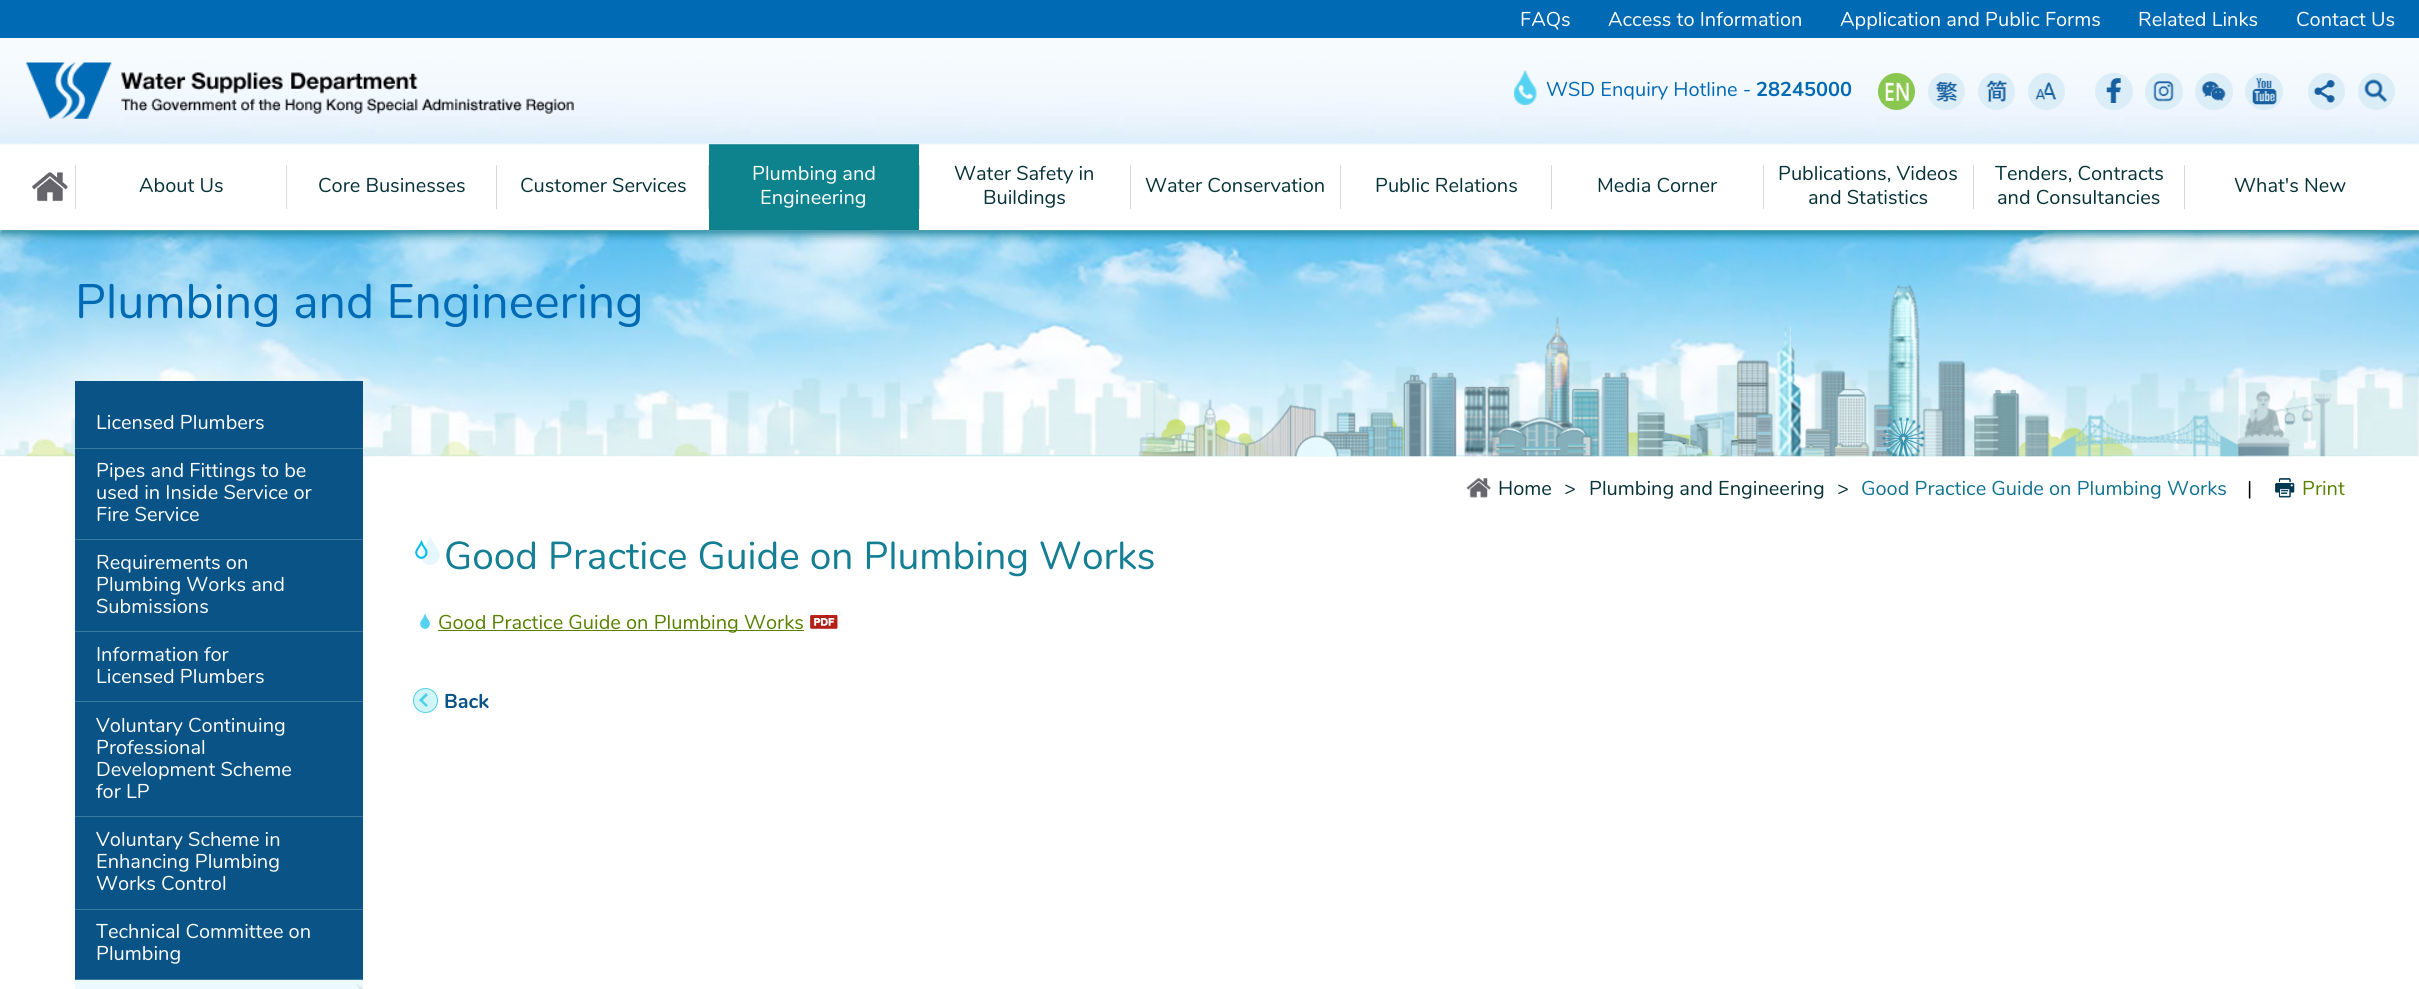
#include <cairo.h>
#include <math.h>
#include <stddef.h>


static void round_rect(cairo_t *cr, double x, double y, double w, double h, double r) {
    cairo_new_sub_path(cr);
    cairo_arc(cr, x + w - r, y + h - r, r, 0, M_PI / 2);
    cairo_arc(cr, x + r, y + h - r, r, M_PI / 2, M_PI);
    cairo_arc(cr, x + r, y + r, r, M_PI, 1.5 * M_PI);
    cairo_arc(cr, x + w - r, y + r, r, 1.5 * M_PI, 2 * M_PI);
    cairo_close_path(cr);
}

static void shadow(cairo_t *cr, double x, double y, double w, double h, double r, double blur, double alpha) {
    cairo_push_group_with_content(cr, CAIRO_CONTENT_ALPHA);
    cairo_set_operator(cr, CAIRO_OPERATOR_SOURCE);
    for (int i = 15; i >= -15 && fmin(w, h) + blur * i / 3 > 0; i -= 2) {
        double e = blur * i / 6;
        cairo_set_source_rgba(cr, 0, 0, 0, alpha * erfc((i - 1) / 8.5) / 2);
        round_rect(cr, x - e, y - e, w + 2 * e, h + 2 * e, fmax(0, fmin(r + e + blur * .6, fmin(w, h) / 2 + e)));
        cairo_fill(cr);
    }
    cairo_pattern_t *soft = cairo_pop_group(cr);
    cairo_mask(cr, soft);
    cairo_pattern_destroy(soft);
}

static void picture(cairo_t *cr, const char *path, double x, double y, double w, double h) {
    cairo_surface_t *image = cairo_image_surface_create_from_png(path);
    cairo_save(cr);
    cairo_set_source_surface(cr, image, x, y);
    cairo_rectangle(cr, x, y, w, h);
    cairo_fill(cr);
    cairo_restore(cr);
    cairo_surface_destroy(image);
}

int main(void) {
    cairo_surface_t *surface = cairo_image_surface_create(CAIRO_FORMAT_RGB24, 2419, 989);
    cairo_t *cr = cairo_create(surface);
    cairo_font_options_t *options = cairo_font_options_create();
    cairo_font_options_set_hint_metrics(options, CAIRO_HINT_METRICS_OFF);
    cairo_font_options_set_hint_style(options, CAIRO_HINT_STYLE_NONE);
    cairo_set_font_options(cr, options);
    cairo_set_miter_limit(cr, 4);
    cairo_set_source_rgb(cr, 1, 1, 1);
    cairo_paint(cr);
    cairo_set_source_rgb(cr, 0, 0.416, 0.706);
    cairo_rectangle(cr, 0, 0, 2419, 38);
    cairo_fill(cr);
    cairo_select_font_face(cr, "Nunito", CAIRO_FONT_SLANT_NORMAL, CAIRO_FONT_WEIGHT_NORMAL);
    cairo_set_font_size(cr, 20);
    cairo_set_source_rgb(cr, 1, 1, 1);
    cairo_move_to(cr, 1520, 26);
    cairo_show_text(cr, "FAQs");
    cairo_move_to(cr, 1608, 26);
    cairo_show_text(cr, "Access to Information");
    cairo_move_to(cr, 1840, 26);
    cairo_show_text(cr, "Application and Public Forms");
    cairo_move_to(cr, 2138, 26);
    cairo_show_text(cr, "Related Links");
    cairo_move_to(cr, 2296, 26);
    cairo_show_text(cr, "Contact Us");
    picture(cr, "img15.png", 0, 231, 2419, 226);
    cairo_save(cr);
    cairo_rectangle(cr, 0, 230, 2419, 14);
    cairo_clip(cr);
    cairo_set_source_rgb(cr, 0.078, 0.494, 0.58);
    shadow(cr, 0, 146, 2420, 88, 0, 5, 1);
    cairo_restore(cr);
    cairo_set_source_rgb(cr, 0.055, 0.514, 0.553);
    cairo_rectangle(cr, 709, 144, 210, 86);
    cairo_fill(cr);
    picture(cr, "img1.png", 0, 38, 2419, 107);
    picture(cr, "img2.png", 26, 62, 548, 57);
    picture(cr, "img3.png", 1514, 70, 23, 35);
    cairo_set_source_rgb(cr, 0, 0.416, 0.706);
    cairo_move_to(cr, 1546, 96);
    cairo_show_text(cr, "WSD Enquiry Hotline -");
    cairo_select_font_face(cr, "Nunito", CAIRO_FONT_SLANT_NORMAL, CAIRO_FONT_WEIGHT_BOLD);
    cairo_move_to(cr, 1756, 96);
    cairo_show_text(cr, "28245000");
    cairo_set_source_rgb(cr, 0.541, 0.78, 0.314);
    cairo_new_path(cr);
    cairo_arc(cr, 1896.5, 91.5, 18.5, 0, 2 * M_PI);
    cairo_fill(cr);
    picture(cr, "img4.png", 1885, 82, 24, 19);
    cairo_set_source_rgb(cr, 0.859, 0.929, 0.965);
    cairo_arc(cr, 1946.5, 91.5, 18.5, 0, 2 * M_PI);
    cairo_fill(cr);
    picture(cr, "img5.png", 1935, 81, 22, 21);
    cairo_arc(cr, 1996.5, 91.5, 18.5, 0, 2 * M_PI);
    cairo_fill(cr);
    picture(cr, "img6.png", 1986, 80, 21, 22);
    cairo_arc(cr, 2046.5, 91.5, 18.5, 0, 2 * M_PI);
    cairo_fill(cr);
    picture(cr, "img7.png", 2035, 82, 22, 18);
    round_rect(cr, 2095, 73, 38, 37, 18.5);
    cairo_fill(cr);
    picture(cr, "img8.png", 2106, 78, 15, 25);
    round_rect(cr, 2145, 73, 38, 37, 18.5);
    cairo_fill(cr);
    picture(cr, "img9.png", 2153, 81, 21, 21);
    round_rect(cr, 2195, 73, 38, 37, 18.5);
    cairo_fill(cr);
    picture(cr, "img10.png", 2201, 81, 25, 20);
    round_rect(cr, 2245, 73, 38, 37, 18.5);
    cairo_fill(cr);
    picture(cr, "img11.png", 2252, 78, 25, 27);
    cairo_arc(cr, 2326.5, 91.5, 18.5, 0, 2 * M_PI);
    cairo_fill(cr);
    picture(cr, "img12.png", 2313, 80, 22, 23);
    cairo_arc(cr, 2376.5, 91.5, 18.5, 0, 2 * M_PI);
    cairo_fill(cr);
    picture(cr, "img13.png", 2364, 79, 24, 24);
    picture(cr, "img14.png", 32, 172, 36, 30);
    cairo_set_source_rgb(cr, 0.839, 0.847, 0.867);
    cairo_rectangle(cr, 75, 165, 1, 44);
    cairo_fill(cr);
    cairo_select_font_face(cr, "Nunito", CAIRO_FONT_SLANT_NORMAL, CAIRO_FONT_WEIGHT_NORMAL);
    cairo_set_source_rgb(cr, 0.027, 0.196, 0.22);
    cairo_move_to(cr, 139, 192);
    cairo_show_text(cr, "About Us");
    cairo_set_source_rgb(cr, 0.839, 0.847, 0.867);
    cairo_rectangle(cr, 286, 165, 1, 44);
    cairo_fill(cr);
    cairo_set_source_rgb(cr, 0.027, 0.196, 0.22);
    cairo_move_to(cr, 318, 192);
    cairo_show_text(cr, "Core Businesses");
    cairo_set_source_rgb(cr, 0.839, 0.847, 0.867);
    cairo_rectangle(cr, 496, 165, 1, 44);
    cairo_fill(cr);
    cairo_set_source_rgb(cr, 0.027, 0.196, 0.22);
    cairo_move_to(cr, 520, 192);
    cairo_show_text(cr, "Customer Services");
    cairo_set_source_rgb(cr, 0.839, 0.847, 0.867);
    cairo_rectangle(cr, 708, 165, 1, 44);
    cairo_fill(cr);
    cairo_set_source_rgb(cr, 1, 1, 1);
    cairo_move_to(cr, 752, 180);
    cairo_show_text(cr, "Plumbing and");
    cairo_move_to(cr, 760, 204);
    cairo_show_text(cr, "Engineering");
    cairo_set_source_rgb(cr, 0.839, 0.847, 0.867);
    cairo_rectangle(cr, 919, 165, 1, 44);
    cairo_fill(cr);
    cairo_set_source_rgb(cr, 0.027, 0.196, 0.22);
    cairo_move_to(cr, 954, 180);
    cairo_show_text(cr, "Water Safety in");
    cairo_move_to(cr, 983, 204);
    cairo_show_text(cr, "Buildings");
    cairo_set_source_rgb(cr, 0.839, 0.847, 0.867);
    cairo_rectangle(cr, 1130, 165, 1, 44);
    cairo_fill(cr);
    cairo_set_source_rgb(cr, 0.027, 0.196, 0.22);
    cairo_move_to(cr, 1145, 192);
    cairo_show_text(cr, "Water Conservation");
    cairo_set_source_rgb(cr, 0.839, 0.847, 0.867);
    cairo_rectangle(cr, 1340, 165, 1, 44);
    cairo_fill(cr);
    cairo_set_source_rgb(cr, 0.027, 0.196, 0.22);
    cairo_move_to(cr, 1375, 192);
    cairo_show_text(cr, "Public Relations");
    cairo_set_source_rgb(cr, 0.839, 0.847, 0.867);
    cairo_rectangle(cr, 1551, 165, 1, 44);
    cairo_fill(cr);
    cairo_set_source_rgb(cr, 0.027, 0.196, 0.22);
    cairo_move_to(cr, 1597, 192);
    cairo_show_text(cr, "Media Corner");
    cairo_set_source_rgb(cr, 0.839, 0.847, 0.867);
    cairo_rectangle(cr, 1763, 165, 1, 44);
    cairo_fill(cr);
    cairo_set_source_rgb(cr, 0.027, 0.196, 0.22);
    cairo_move_to(cr, 1778, 180);
    cairo_show_text(cr, "Publications, Videos");
    cairo_move_to(cr, 1808, 204);
    cairo_show_text(cr, "and Statistics");
    cairo_set_source_rgb(cr, 0.839, 0.847, 0.867);
    cairo_rectangle(cr, 1973, 165, 1, 44);
    cairo_fill(cr);
    cairo_set_source_rgb(cr, 0.027, 0.196, 0.22);
    cairo_move_to(cr, 1995, 180);
    cairo_show_text(cr, "Tenders, Contracts");
    cairo_move_to(cr, 1997, 204);
    cairo_show_text(cr, "and Consultancies");
    cairo_set_source_rgb(cr, 0.839, 0.847, 0.867);
    cairo_rectangle(cr, 2184, 165, 1, 44);
    cairo_fill(cr);
    cairo_set_source_rgb(cr, 0.027, 0.196, 0.22);
    cairo_move_to(cr, 2234, 192);
    cairo_show_text(cr, "What's New");
    cairo_set_font_size(cr, 48.25);
    cairo_set_source_rgb(cr, 0, 0.416, 0.706);
    cairo_move_to(cr, 75, 318);
    cairo_show_text(cr, "Plumbing and Engineering");
    picture(cr, "img16.png", 1139, 285, 1193, 172);
    cairo_set_source_rgb(cr, 0.039, 0.325, 0.525);
    cairo_rectangle(cr, 75, 381, 288, 598);
    cairo_fill(cr);
    cairo_set_source_rgb(cr, 0.212, 0.478, 0.624);
    cairo_rectangle(cr, 75, 448, 288, 1);
    cairo_fill(cr);
    cairo_set_font_size(cr, 20);
    cairo_set_source_rgb(cr, 1, 1, 1);
    cairo_move_to(cr, 96, 429);
    cairo_show_text(cr, "Licensed Plumbers");
    cairo_set_source_rgb(cr, 0.212, 0.478, 0.624);
    cairo_rectangle(cr, 75, 539, 288, 1);
    cairo_fill(cr);
    cairo_set_source_rgb(cr, 1, 1, 1);
    cairo_move_to(cr, 96, 477);
    cairo_show_text(cr, "Pipes and Fittings to be");
    cairo_move_to(cr, 96, 499);
    cairo_show_text(cr, "used in Inside Service or");
    cairo_move_to(cr, 96, 521);
    cairo_show_text(cr, "Fire Service");
    cairo_set_source_rgb(cr, 0.212, 0.478, 0.624);
    cairo_rectangle(cr, 75, 631, 288, 1);
    cairo_fill(cr);
    cairo_set_source_rgb(cr, 1, 1, 1);
    cairo_move_to(cr, 96, 569);
    cairo_show_text(cr, "Requirements on");
    cairo_move_to(cr, 96, 591);
    cairo_show_text(cr, "Plumbing Works and");
    cairo_move_to(cr, 96, 613);
    cairo_show_text(cr, "Submissions");
    cairo_set_source_rgb(cr, 0.212, 0.478, 0.624);
    cairo_rectangle(cr, 75, 701, 288, 1);
    cairo_fill(cr);
    cairo_set_source_rgb(cr, 1, 1, 1);
    cairo_move_to(cr, 96, 661);
    cairo_show_text(cr, "Information for");
    cairo_move_to(cr, 96, 683);
    cairo_show_text(cr, "Licensed Plumbers");
    cairo_set_source_rgb(cr, 0.212, 0.478, 0.624);
    cairo_rectangle(cr, 75, 816, 288, 1);
    cairo_fill(cr);
    cairo_set_source_rgb(cr, 1, 1, 1);
    cairo_move_to(cr, 96, 732);
    cairo_show_text(cr, "Voluntary Continuing");
    cairo_move_to(cr, 96, 754);
    cairo_show_text(cr, "Professional");
    cairo_move_to(cr, 96, 776);
    cairo_show_text(cr, "Development Scheme");
    cairo_move_to(cr, 96, 798);
    cairo_show_text(cr, "for LP");
    cairo_set_source_rgb(cr, 0.212, 0.478, 0.624);
    cairo_rectangle(cr, 75, 909, 288, 1);
    cairo_fill(cr);
    cairo_set_source_rgb(cr, 1, 1, 1);
    cairo_move_to(cr, 96, 846);
    cairo_show_text(cr, "Voluntary Scheme in");
    cairo_move_to(cr, 96, 868);
    cairo_show_text(cr, "Enhancing Plumbing");
    cairo_move_to(cr, 96, 890);
    cairo_show_text(cr, "Works Control");
    cairo_set_source_rgb(cr, 0.212, 0.478, 0.624);
    cairo_rectangle(cr, 75, 979, 288, 1);
    cairo_fill(cr);
    cairo_set_source_rgb(cr, 1, 1, 1);
    cairo_move_to(cr, 96, 938);
    cairo_show_text(cr, "Technical Committee on");
    cairo_move_to(cr, 96, 960);
    cairo_show_text(cr, "Plumbing");
    cairo_set_source_rgb(cr, 0.922, 0.98, 1);
    cairo_rectangle(cr, 75, 980, 288, 9);
    cairo_fill(cr);
    picture(cr, "img17.png", 356, 984, 8, 5);
    picture(cr, "img18.png", 1466, 477, 25, 21);
    cairo_set_source_rgb(cr, 0.027, 0.196, 0.22);
    cairo_move_to(cr, 1498, 495);
    cairo_show_text(cr, "Home");
    cairo_move_to(cr, 1564, 495);
    cairo_show_text(cr, ">");
    cairo_move_to(cr, 1589, 495);
    cairo_show_text(cr, "Plumbing and Engineering");
    cairo_move_to(cr, 1837, 495);
    cairo_show_text(cr, ">");
    cairo_set_source_rgb(cr, 0.071, 0.451, 0.565);
    cairo_move_to(cr, 1861, 495);
    cairo_show_text(cr, "Good Practice Guide on Plumbing Works");
    cairo_set_source_rgb(cr, 0, 0, 0);
    cairo_move_to(cr, 2247, 495);
    cairo_show_text(cr, "|");
    picture(cr, "img19.png", 2275, 478, 20, 20);
    cairo_set_source_rgb(cr, 0.345, 0.506, 0);
    cairo_move_to(cr, 2302, 495);
    cairo_show_text(cr, "Print");
    picture(cr, "img20.png", 415, 536, 25, 29);
    cairo_set_font_size(cr, 38.9);
    cairo_set_source_rgb(cr, 0.078, 0.494, 0.58);
    cairo_move_to(cr, 444, 569);
    cairo_show_text(cr, "Good Practice Guide on Plumbing Works");
    picture(cr, "img21.png", 420, 614, 10, 15);
    cairo_set_source_rgb(cr, 0.345, 0.506, 0);
    cairo_rectangle(cr, 438, 630, 366, 1);
    cairo_fill(cr);
    cairo_set_font_size(cr, 20);
    cairo_move_to(cr, 438, 629);
    cairo_show_text(cr, "Good Practice Guide on Plumbing Works");
    picture(cr, "img22.png", 810, 615, 28, 14);
    cairo_set_source_rgb(cr, 0.82, 0.957, 0.965);
    cairo_arc(cr, 425.5, 700.5, 12, 0, 2 * M_PI);
    cairo_fill_preserve(cr);
    cairo_set_source_rgb(cr, 0.306, 0.82, 0.898);
    cairo_set_line_width(cr, 1);
    cairo_stroke(cr);
    cairo_new_path(cr);
    cairo_move_to(cr, 421, 698.5);
    cairo_line_to(cr, 428, 705.5);
    cairo_line_to(cr, 426, 707);
    cairo_line_to(cr, 419, 700);
    cairo_close_path(cr);
    cairo_fill(cr);
    cairo_new_path(cr);
    cairo_move_to(cr, 426, 693);
    cairo_line_to(cr, 428, 695);
    cairo_line_to(cr, 421, 702);
    cairo_line_to(cr, 419, 700);
    cairo_close_path(cr);
    cairo_fill(cr);
    cairo_select_font_face(cr, "Nunito", CAIRO_FONT_SLANT_NORMAL, CAIRO_FONT_WEIGHT_BOLD);
    cairo_set_source_rgb(cr, 0.039, 0.325, 0.525);
    cairo_move_to(cr, 444, 708);
    cairo_show_text(cr, "Back");
    cairo_surface_write_to_png(surface, "page.png");
    cairo_font_options_destroy(options);
    cairo_destroy(cr);
    cairo_surface_destroy(surface);
    return 0;
}
